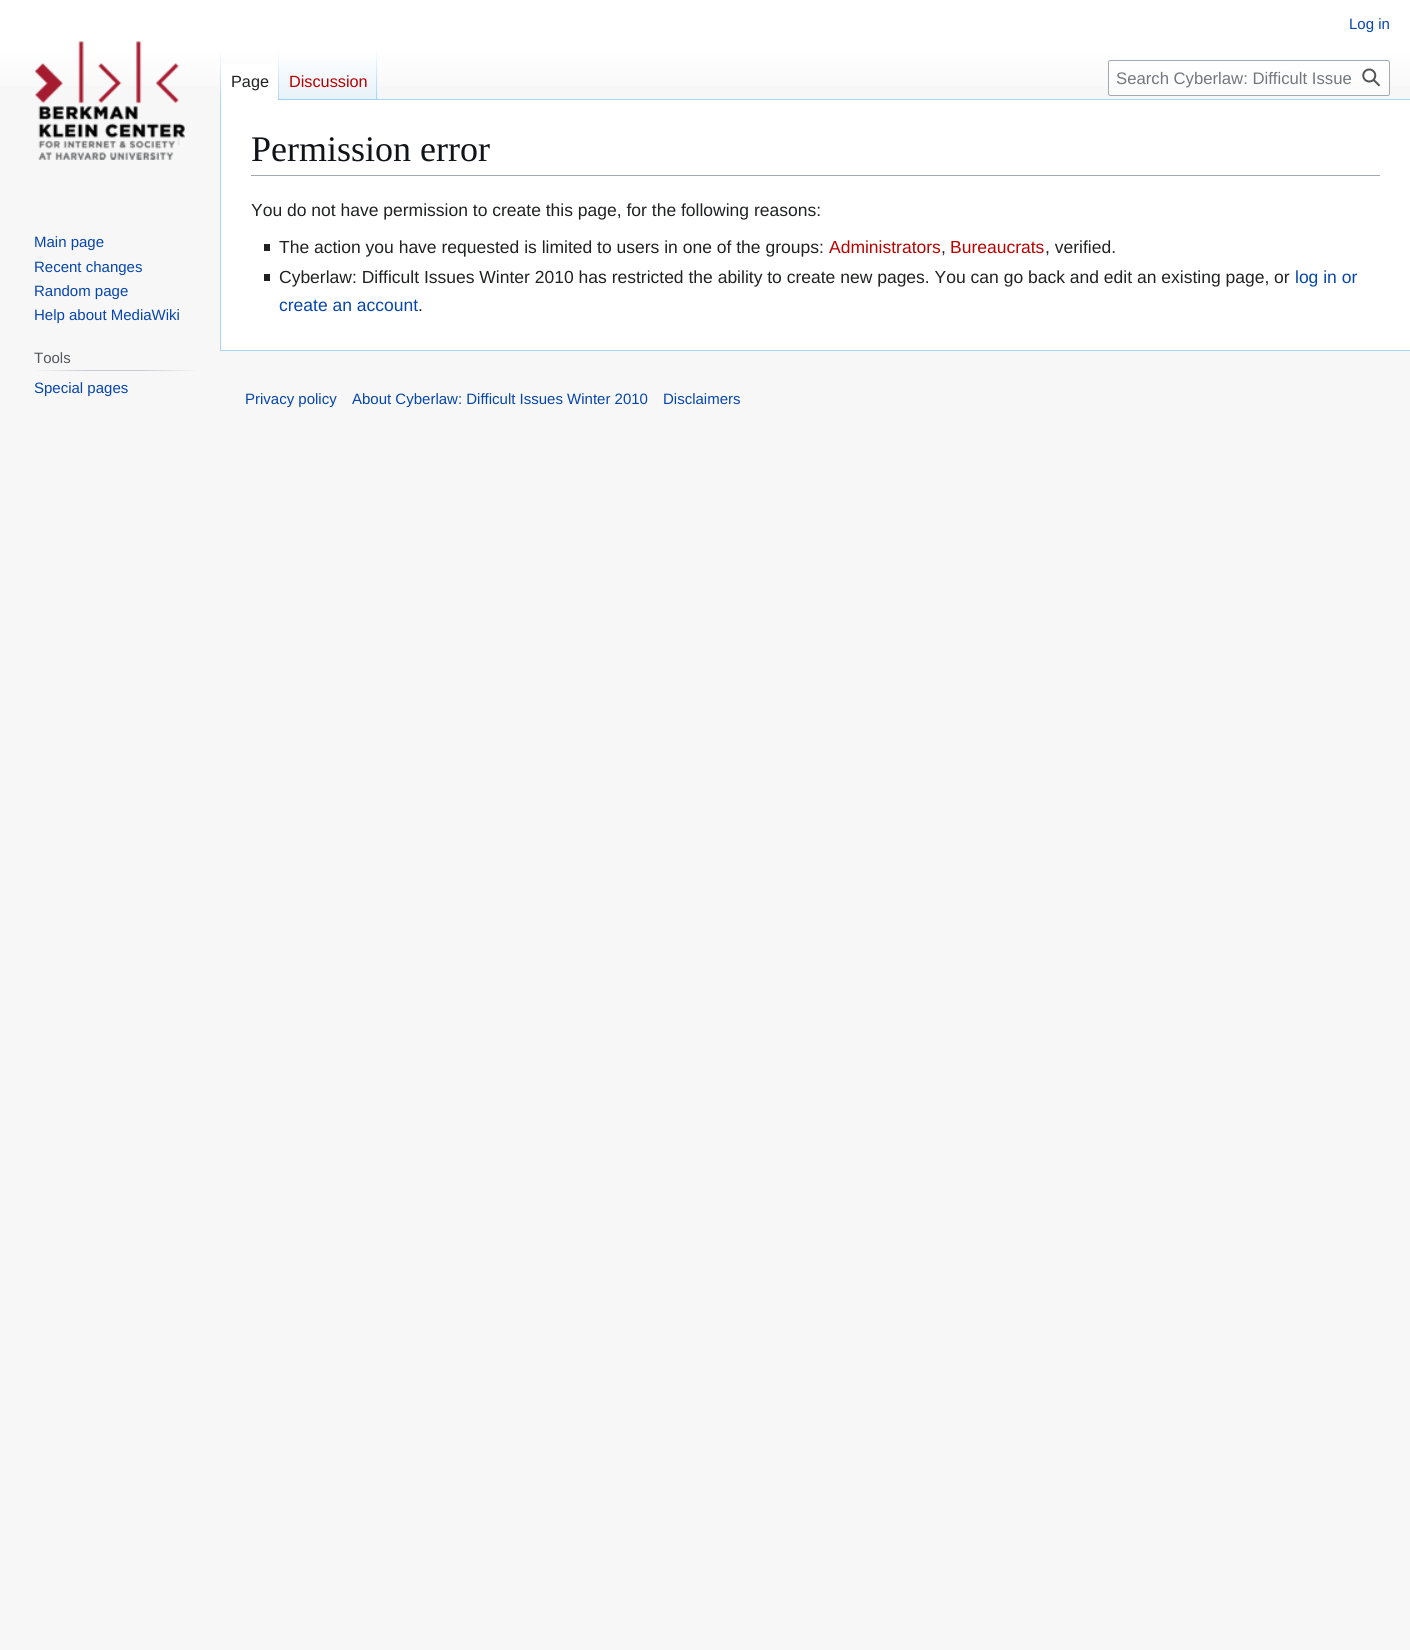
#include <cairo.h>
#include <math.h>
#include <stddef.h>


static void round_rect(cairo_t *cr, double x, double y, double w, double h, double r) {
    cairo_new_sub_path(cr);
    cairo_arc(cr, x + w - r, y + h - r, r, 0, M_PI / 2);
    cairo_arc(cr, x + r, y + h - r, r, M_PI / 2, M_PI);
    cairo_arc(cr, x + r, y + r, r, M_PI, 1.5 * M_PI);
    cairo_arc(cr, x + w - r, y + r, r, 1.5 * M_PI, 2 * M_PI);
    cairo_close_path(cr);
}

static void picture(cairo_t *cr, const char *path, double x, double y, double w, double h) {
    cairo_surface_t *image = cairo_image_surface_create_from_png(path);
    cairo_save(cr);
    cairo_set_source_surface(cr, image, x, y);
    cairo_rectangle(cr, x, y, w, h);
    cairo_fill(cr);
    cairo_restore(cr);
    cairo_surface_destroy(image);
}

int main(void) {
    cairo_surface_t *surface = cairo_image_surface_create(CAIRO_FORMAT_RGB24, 1410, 1650);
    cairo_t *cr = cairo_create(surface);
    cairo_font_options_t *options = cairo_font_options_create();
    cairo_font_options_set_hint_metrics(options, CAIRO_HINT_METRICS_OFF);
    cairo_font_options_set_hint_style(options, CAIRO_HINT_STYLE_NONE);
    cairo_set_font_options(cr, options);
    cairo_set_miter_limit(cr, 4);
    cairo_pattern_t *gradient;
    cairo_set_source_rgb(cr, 0.965, 0.965, 0.965);
    cairo_paint(cr);
    gradient = cairo_pattern_create_linear(705, 0, 705, 100);
    cairo_pattern_add_color_stop_rgba(gradient, 0.5, 1, 1, 1, 1);
    cairo_pattern_add_color_stop_rgba(gradient, 1, 0.965, 0.965, 0.965, 1);
    cairo_set_source(cr, gradient);
    cairo_pattern_destroy(gradient);
    cairo_rectangle(cr, 0, 0, 1410, 86);
    cairo_fill(cr);
    cairo_select_font_face(cr, "Liberation Sans", CAIRO_FONT_SLANT_NORMAL, CAIRO_FONT_WEIGHT_NORMAL);
    cairo_set_font_size(cr, 15);
    cairo_set_source_rgb(cr, 0.024, 0.271, 0.678);
    cairo_move_to(cr, 1349, 29);
    cairo_show_text(cr, "Log in");
    cairo_set_source_rgb(cr, 0.655, 0.843, 0.976);
    cairo_rectangle(cr, 220, 350, 1190, 1);
    cairo_fill(cr);
    cairo_rectangle(cr, 220, 99, 1, 252);
    cairo_fill(cr);
    gradient = cairo_pattern_create_linear(221, 50, 221, 100);
    cairo_pattern_add_color_stop_rgba(gradient, 0, 0.655, 0.843, 0.976, 0);
    cairo_pattern_add_color_stop_rgba(gradient, 1, 0.655, 0.843, 0.976, 1);
    cairo_set_source(cr, gradient);
    cairo_pattern_destroy(gradient);
    cairo_rectangle(cr, 220, 50, 1, 50);
    cairo_fill(cr);
    cairo_set_source_rgb(cr, 1, 1, 1);
    cairo_rectangle(cr, 221, 64, 57, 36);
    cairo_fill(cr);
    gradient = cairo_pattern_create_linear(278, 50, 278, 100);
    cairo_pattern_add_color_stop_rgba(gradient, 0, 1, 1, 1, 1);
    cairo_pattern_add_color_stop_rgba(gradient, 1, 0.655, 0.843, 0.976, 1);
    cairo_set_source(cr, gradient);
    cairo_pattern_destroy(gradient);
    cairo_rectangle(cr, 278, 50, 1, 50);
    cairo_fill(cr);
    cairo_set_font_size(cr, 16.25);
    cairo_set_source_rgb(cr, 0.125, 0.129, 0.133);
    cairo_move_to(cr, 231, 87);
    cairo_show_text(cr, "Page");
    gradient = cairo_pattern_create_linear(328, 100, 328, 50);
    cairo_pattern_add_color_stop_rgba(gradient, 0, 0.467, 0.757, 0.965, 1);
    cairo_pattern_add_color_stop_rgba(gradient, 0.03, 0.91, 0.949, 0.973, 1);
    cairo_pattern_add_color_stop_rgba(gradient, 1, 1, 1, 1, 1);
    cairo_set_source(cr, gradient);
    cairo_pattern_destroy(gradient);
    cairo_rectangle(cr, 279, 57, 99, 43);
    cairo_fill(cr);
    gradient = cairo_pattern_create_linear(377, 50, 377, 100);
    cairo_pattern_add_color_stop_rgba(gradient, 0, 0.655, 0.843, 0.976, 0);
    cairo_pattern_add_color_stop_rgba(gradient, 1, 0.655, 0.843, 0.976, 1);
    cairo_set_source(cr, gradient);
    cairo_pattern_destroy(gradient);
    cairo_rectangle(cr, 376, 50, 1, 50);
    cairo_fill(cr);
    cairo_set_source_rgb(cr, 0.729, 0, 0);
    cairo_move_to(cr, 289, 87);
    cairo_show_text(cr, "Discussion");
    cairo_set_source_rgba(cr, 1, 1, 1, 0.5);
    round_rect(cr, 1108.5, 60.5, 281, 35, 2);
    cairo_fill_preserve(cr);
    cairo_set_source_rgb(cr, 0.635, 0.663, 0.694);
    cairo_set_line_width(cr, 1);
    cairo_stroke(cr);
    cairo_set_font_size(cr, 16.7);
    cairo_set_source_rgb(cr, 0.447, 0.467, 0.49);
    cairo_move_to(cr, 1116, 84);
    cairo_show_text(cr, "Search Cyberlaw: Difficult Issue");
    picture(cr, "img1.png", 1362, 68, 19, 19);
    picture(cr, "img2.png", 35, 41, 150, 119);
    cairo_set_font_size(cr, 15);
    cairo_set_source_rgb(cr, 0.024, 0.271, 0.678);
    cairo_move_to(cr, 34, 247);
    cairo_show_text(cr, "Main page");
    cairo_move_to(cr, 34, 272);
    cairo_show_text(cr, "Recent changes");
    cairo_move_to(cr, 34, 296);
    cairo_show_text(cr, "Random page");
    cairo_move_to(cr, 34, 320);
    cairo_show_text(cr, "Help about MediaWiki");
    gradient = cairo_pattern_create_linear(34, 371, 198, 371);
    cairo_pattern_add_color_stop_rgba(gradient, 0, 0.965, 0.965, 0.965, 1);
    cairo_pattern_add_color_stop_rgba(gradient, 0.33, 0.784, 0.8, 0.82, 1);
    cairo_pattern_add_color_stop_rgba(gradient, 0.66, 0.784, 0.8, 0.82, 1);
    cairo_pattern_add_color_stop_rgba(gradient, 1, 0.965, 0.965, 0.965, 1);
    cairo_set_source(cr, gradient);
    cairo_pattern_destroy(gradient);
    cairo_rectangle(cr, 34, 370, 164, 1);
    cairo_fill(cr);
    cairo_set_source_rgb(cr, 0.329, 0.349, 0.365);
    cairo_move_to(cr, 34, 363);
    cairo_show_text(cr, "Tools");
    cairo_set_source_rgb(cr, 0.024, 0.271, 0.678);
    cairo_move_to(cr, 34, 393);
    cairo_show_text(cr, "Special pages");
    cairo_set_source_rgb(cr, 1, 1, 1);
    cairo_rectangle(cr, 221, 100, 1189, 250);
    cairo_fill(cr);
    cairo_set_source_rgb(cr, 0.655, 0.843, 0.976);
    cairo_rectangle(cr, 378, 99, 1032, 1);
    cairo_fill(cr);
    cairo_set_source_rgb(cr, 0.635, 0.663, 0.694);
    cairo_rectangle(cr, 251, 175, 1129, 1);
    cairo_fill(cr);
    cairo_select_font_face(cr, "Liberation Serif", CAIRO_FONT_SLANT_NORMAL, CAIRO_FONT_WEIGHT_NORMAL);
    cairo_set_font_size(cr, 36);
    cairo_set_source_rgb(cr, 0.063, 0.078, 0.094);
    cairo_move_to(cr, 251, 161);
    cairo_show_text(cr, "Permission error");
    cairo_select_font_face(cr, "Liberation Sans", CAIRO_FONT_SLANT_NORMAL, CAIRO_FONT_WEIGHT_NORMAL);
    cairo_set_font_size(cr, 17.5);
    cairo_set_source_rgb(cr, 0.125, 0.129, 0.133);
    cairo_move_to(cr, 251, 216);
    cairo_show_text(cr, "You do not have permission to create this page, for the following reasons:");
    cairo_rectangle(cr, 264, 244, 6, 7);
    cairo_fill(cr);
    cairo_move_to(cr, 279, 253);
    cairo_show_text(cr, "The action you have requested is limited to users in one of the groups:");
    cairo_set_source_rgb(cr, 0.729, 0, 0);
    cairo_move_to(cr, 829, 253);
    cairo_show_text(cr, "Administrators");
    cairo_set_source_rgb(cr, 0.125, 0.129, 0.133);
    cairo_move_to(cr, 941, 253);
    cairo_show_text(cr, ",");
    cairo_set_source_rgb(cr, 0.729, 0, 0);
    cairo_move_to(cr, 950, 253);
    cairo_show_text(cr, "Bureaucrats");
    cairo_set_source_rgb(cr, 0.125, 0.129, 0.133);
    cairo_move_to(cr, 1045, 253);
    cairo_show_text(cr, ", verified.");
    cairo_rectangle(cr, 264, 274, 6, 7);
    cairo_fill(cr);
    cairo_move_to(cr, 279, 283);
    cairo_show_text(cr, "Cyberlaw: Difficult Issues Winter 2010 has restricted the ability to create new pages. You can go back and edit an existing page, or");
    cairo_set_source_rgb(cr, 0.024, 0.271, 0.678);
    cairo_move_to(cr, 1295, 283);
    cairo_show_text(cr, "log in or");
    cairo_move_to(cr, 279, 311);
    cairo_show_text(cr, "create an account");
    cairo_set_source_rgb(cr, 0.125, 0.129, 0.133);
    cairo_move_to(cr, 418, 311);
    cairo_show_text(cr, ".");
    cairo_set_font_size(cr, 15);
    cairo_set_source_rgb(cr, 0.024, 0.271, 0.678);
    cairo_move_to(cr, 245, 404);
    cairo_show_text(cr, "Privacy policy");
    cairo_move_to(cr, 352, 404);
    cairo_show_text(cr, "About Cyberlaw: Difficult Issues Winter 2010");
    cairo_move_to(cr, 663, 404);
    cairo_show_text(cr, "Disclaimers");
    cairo_surface_write_to_png(surface, "page.png");
    cairo_font_options_destroy(options);
    cairo_destroy(cr);
    cairo_surface_destroy(surface);
    return 0;
}
